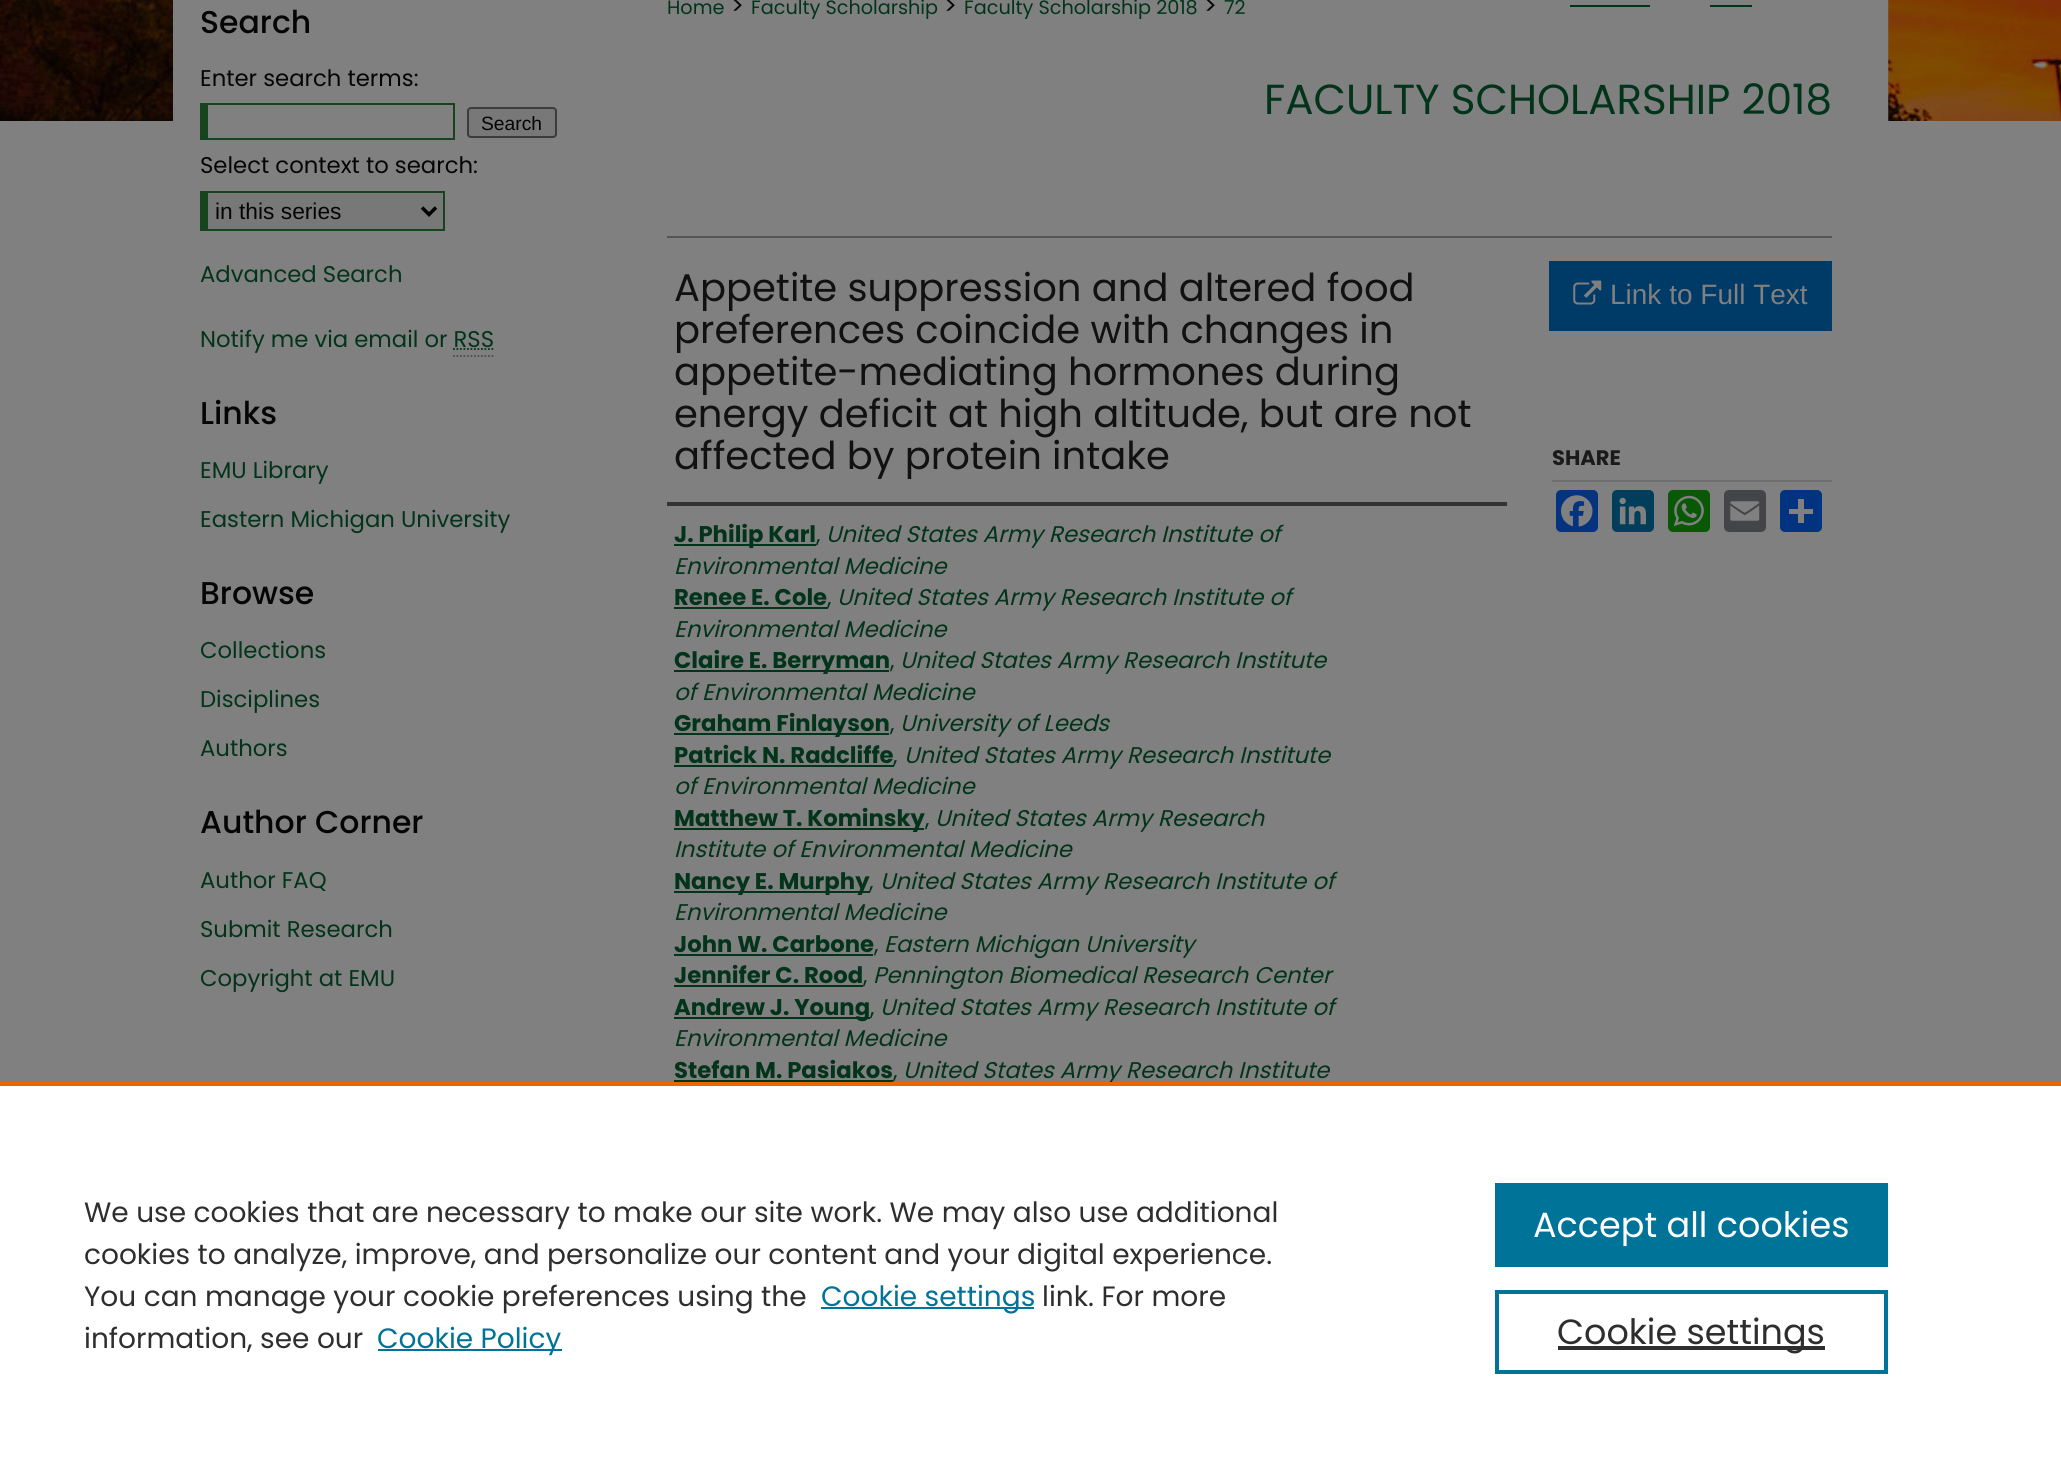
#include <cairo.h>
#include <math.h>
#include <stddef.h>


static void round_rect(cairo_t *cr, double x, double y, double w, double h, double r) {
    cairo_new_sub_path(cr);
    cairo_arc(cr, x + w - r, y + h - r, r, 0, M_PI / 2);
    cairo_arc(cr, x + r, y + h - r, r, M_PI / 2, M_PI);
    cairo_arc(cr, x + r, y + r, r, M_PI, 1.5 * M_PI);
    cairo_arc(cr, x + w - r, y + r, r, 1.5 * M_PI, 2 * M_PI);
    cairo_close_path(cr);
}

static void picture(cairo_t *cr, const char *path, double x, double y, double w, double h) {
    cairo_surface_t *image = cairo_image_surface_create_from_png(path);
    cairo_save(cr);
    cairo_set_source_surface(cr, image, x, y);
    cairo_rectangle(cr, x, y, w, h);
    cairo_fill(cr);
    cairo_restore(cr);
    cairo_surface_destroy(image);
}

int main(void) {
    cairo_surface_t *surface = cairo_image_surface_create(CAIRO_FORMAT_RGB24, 2061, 1465);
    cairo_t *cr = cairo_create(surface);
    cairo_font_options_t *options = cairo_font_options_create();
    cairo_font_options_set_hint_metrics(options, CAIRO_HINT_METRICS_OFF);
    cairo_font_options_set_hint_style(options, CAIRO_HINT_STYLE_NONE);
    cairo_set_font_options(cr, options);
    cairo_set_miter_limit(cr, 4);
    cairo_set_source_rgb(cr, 0.502, 0.502, 0.502);
    cairo_paint(cr);
    picture(cr, "img1.png", 0, 0, 2061, 121);
    cairo_set_source_rgb(cr, 0.502, 0.502, 0.502);
    cairo_rectangle(cr, 173, 0, 1715, 121);
    cairo_fill(cr);
    cairo_set_source_rgba(cr, 0.502, 0.502, 0.502, 0.25);
    cairo_rectangle(cr, 1888, 0, 1, 121);
    cairo_fill(cr);
    cairo_select_font_face(cr, "Poppins Medium", CAIRO_FONT_SLANT_NORMAL, CAIRO_FONT_WEIGHT_NORMAL);
    cairo_set_font_size(cr, 31.5);
    cairo_set_source_rgb(cr, 0.02, 0.02, 0.02);
    cairo_move_to(cr, 200, 33);
    cairo_show_text(cr, "Search");
    cairo_select_font_face(cr, "Poppins", CAIRO_FONT_SLANT_NORMAL, CAIRO_FONT_WEIGHT_NORMAL);
    cairo_set_font_size(cr, 22.75);
    cairo_move_to(cr, 200, 86);
    cairo_show_text(cr, "Enter search terms:");
    cairo_set_source_rgb(cr, 0.086, 0.267, 0.118);
    cairo_rectangle(cr, 200, 103, 255, 2);
    cairo_fill(cr);
    cairo_rectangle(cr, 453, 103, 2, 37);
    cairo_fill(cr);
    cairo_rectangle(cr, 200, 138, 255, 2);
    cairo_fill(cr);
    cairo_rectangle(cr, 200, 103, 8, 37);
    cairo_fill(cr);
    cairo_set_source_rgb(cr, 0.471, 0.471, 0.471);
    round_rect(cr, 468, 108, 88, 29, 3);
    cairo_fill_preserve(cr);
    cairo_set_source_rgb(cr, 0.231, 0.231, 0.231);
    cairo_stroke(cr);
    cairo_select_font_face(cr, "Liberation Sans", CAIRO_FONT_SLANT_NORMAL, CAIRO_FONT_WEIGHT_NORMAL);
    cairo_set_font_size(cr, 19.25);
    cairo_set_source_rgb(cr, 0.02, 0.02, 0.02);
    cairo_move_to(cr, 481, 130);
    cairo_show_text(cr, "Search");
    cairo_select_font_face(cr, "Poppins", CAIRO_FONT_SLANT_NORMAL, CAIRO_FONT_WEIGHT_NORMAL);
    cairo_set_font_size(cr, 22.75);
    cairo_move_to(cr, 200, 173);
    cairo_show_text(cr, "Select context to search:");
    cairo_set_source_rgb(cr, 0.471, 0.471, 0.471);
    cairo_rectangle(cr, 208, 193, 235, 36);
    cairo_fill(cr);
    cairo_set_source_rgb(cr, 0.086, 0.267, 0.118);
    cairo_rectangle(cr, 200, 191, 245, 2);
    cairo_fill(cr);
    cairo_rectangle(cr, 443, 191, 2, 40);
    cairo_fill(cr);
    cairo_rectangle(cr, 200, 229, 245, 2);
    cairo_fill(cr);
    cairo_rectangle(cr, 200, 191, 8, 40);
    cairo_fill(cr);
    cairo_new_path(cr);
    cairo_move_to(cr, 422, 207.5);
    cairo_line_to(cr, 429, 214.5);
    cairo_line_to(cr, 436, 207.5);
    cairo_set_source_rgb(cr, 0, 0, 0);
    cairo_set_line_width(cr, 3.5);
    cairo_stroke(cr);
    cairo_select_font_face(cr, "Liberation Sans", CAIRO_FONT_SLANT_NORMAL, CAIRO_FONT_WEIGHT_NORMAL);
    cairo_set_source_rgb(cr, 0.02, 0.02, 0.02);
    cairo_move_to(cr, 215, 219);
    cairo_show_text(cr, "in this series");
    cairo_select_font_face(cr, "Poppins", CAIRO_FONT_SLANT_NORMAL, CAIRO_FONT_WEIGHT_NORMAL);
    cairo_set_source_rgb(cr, 0.008, 0.2, 0.106);
    cairo_move_to(cr, 200, 282);
    cairo_show_text(cr, "Advanced Search");
    cairo_move_to(cr, 200, 347);
    cairo_show_text(cr, "Notify me via email or RSS");
    cairo_new_path(cr);
    cairo_move_to(cr, 453, 349);
    cairo_line_to(cr, 493.5, 349);
    cairo_set_line_width(cr, 1.8);
    cairo_set_dash(cr, (double[]){1.75, 1.75}, 2, 0);
    cairo_stroke(cr);
    cairo_new_path(cr);
    cairo_move_to(cr, 453, 356);
    cairo_line_to(cr, 493.5, 356);
    cairo_set_source_rgb(cr, 0.302, 0.302, 0.302);
    cairo_stroke(cr);
    cairo_select_font_face(cr, "Poppins Medium", CAIRO_FONT_SLANT_NORMAL, CAIRO_FONT_WEIGHT_NORMAL);
    cairo_set_font_size(cr, 31.5);
    cairo_set_source_rgb(cr, 0.02, 0.02, 0.02);
    cairo_move_to(cr, 200, 424);
    cairo_show_text(cr, "Links");
    cairo_select_font_face(cr, "Poppins", CAIRO_FONT_SLANT_NORMAL, CAIRO_FONT_WEIGHT_NORMAL);
    cairo_set_font_size(cr, 22.75);
    cairo_set_source_rgb(cr, 0.008, 0.2, 0.106);
    cairo_move_to(cr, 200, 478);
    cairo_show_text(cr, "EMU Library");
    cairo_move_to(cr, 200, 527);
    cairo_show_text(cr, "Eastern Michigan University");
    cairo_select_font_face(cr, "Poppins Medium", CAIRO_FONT_SLANT_NORMAL, CAIRO_FONT_WEIGHT_NORMAL);
    cairo_set_font_size(cr, 31.5);
    cairo_set_source_rgb(cr, 0.02, 0.02, 0.02);
    cairo_move_to(cr, 200, 604);
    cairo_show_text(cr, "Browse");
    cairo_select_font_face(cr, "Poppins", CAIRO_FONT_SLANT_NORMAL, CAIRO_FONT_WEIGHT_NORMAL);
    cairo_set_font_size(cr, 22.75);
    cairo_set_source_rgb(cr, 0.008, 0.2, 0.106);
    cairo_move_to(cr, 200, 658);
    cairo_show_text(cr, "Collections");
    cairo_move_to(cr, 200, 707);
    cairo_show_text(cr, "Disciplines");
    cairo_move_to(cr, 200, 756);
    cairo_show_text(cr, "Authors");
    cairo_select_font_face(cr, "Poppins Medium", CAIRO_FONT_SLANT_NORMAL, CAIRO_FONT_WEIGHT_NORMAL);
    cairo_set_font_size(cr, 31.5);
    cairo_set_source_rgb(cr, 0.02, 0.02, 0.02);
    cairo_move_to(cr, 200, 833);
    cairo_show_text(cr, "Author Corner");
    cairo_select_font_face(cr, "Poppins", CAIRO_FONT_SLANT_NORMAL, CAIRO_FONT_WEIGHT_NORMAL);
    cairo_set_font_size(cr, 22.75);
    cairo_set_source_rgb(cr, 0.008, 0.2, 0.106);
    cairo_move_to(cr, 200, 888);
    cairo_show_text(cr, "Author FAQ");
    cairo_move_to(cr, 200, 937);
    cairo_show_text(cr, "Submit Research");
    cairo_move_to(cr, 200, 986);
    cairo_show_text(cr, "Copyright at EMU");
    cairo_set_font_size(cr, 19.25);
    cairo_move_to(cr, 667, 14);
    cairo_show_text(cr, "Home");
    cairo_set_font_size(cr, 24);
    cairo_set_source_rgb(cr, 0.02, 0.02, 0.02);
    cairo_move_to(cr, 731, 14);
    cairo_show_text(cr, ">");
    cairo_set_font_size(cr, 19.25);
    cairo_set_source_rgb(cr, 0.008, 0.2, 0.106);
    cairo_move_to(cr, 751, 14);
    cairo_show_text(cr, "Faculty Scholarship");
    cairo_set_font_size(cr, 24);
    cairo_set_source_rgb(cr, 0.02, 0.02, 0.02);
    cairo_move_to(cr, 944, 14);
    cairo_show_text(cr, ">");
    cairo_set_font_size(cr, 19.25);
    cairo_set_source_rgb(cr, 0.008, 0.2, 0.106);
    cairo_move_to(cr, 964, 14);
    cairo_show_text(cr, "Faculty Scholarship 2018");
    cairo_set_font_size(cr, 24);
    cairo_set_source_rgb(cr, 0.02, 0.02, 0.02);
    cairo_move_to(cr, 1204, 14);
    cairo_show_text(cr, ">");
    cairo_set_font_size(cr, 19.25);
    cairo_set_source_rgb(cr, 0.008, 0.2, 0.106);
    cairo_move_to(cr, 1224, 14);
    cairo_show_text(cr, "72");
    cairo_rectangle(cr, 1570, 5, 80, 2);
    cairo_fill(cr);
    cairo_rectangle(cr, 1710, 5, 42, 2);
    cairo_fill(cr);
    cairo_set_font_size(cr, 42);
    cairo_move_to(cr, 1264, 114);
    cairo_show_text(cr, "FACULTY SCHOLARSHIP 2018");
    cairo_set_source_rgb(cr, 0.333, 0.333, 0.333);
    cairo_rectangle(cr, 667, 236, 1165, 2);
    cairo_fill(cr);
    cairo_set_font_size(cr, 38.5);
    cairo_set_source_rgb(cr, 0.067, 0.067, 0.067);
    cairo_move_to(cr, 674, 301);
    cairo_show_text(cr, "Appetite suppression and altered food");
    cairo_move_to(cr, 674, 343);
    cairo_show_text(cr, "preferences coincide with changes in");
    cairo_move_to(cr, 674, 385);
    cairo_show_text(cr, "appetite-mediating hormones during");
    cairo_move_to(cr, 674, 427);
    cairo_show_text(cr, "energy deficit at high altitude, but are not");
    cairo_move_to(cr, 674, 469);
    cairo_show_text(cr, "affected by protein intake");
    cairo_set_source_rgb(cr, 0.2, 0.2, 0.2);
    cairo_rectangle(cr, 667, 502, 840, 4);
    cairo_fill(cr);
    cairo_set_source_rgb(cr, 0.008, 0.2, 0.106);
    cairo_rectangle(cr, 674, 544, 142, 2);
    cairo_fill(cr);
    cairo_select_font_face(cr, "Poppins", CAIRO_FONT_SLANT_NORMAL, CAIRO_FONT_WEIGHT_BOLD);
    cairo_set_font_size(cr, 22.75);
    cairo_move_to(cr, 674, 542);
    cairo_show_text(cr, "J. Philip Karl");
    cairo_select_font_face(cr, "Poppins", CAIRO_FONT_SLANT_NORMAL, CAIRO_FONT_WEIGHT_NORMAL);
    cairo_move_to(cr, 816, 542);
    cairo_show_text(cr, ",");
    cairo_select_font_face(cr, "Poppins", CAIRO_FONT_SLANT_ITALIC, CAIRO_FONT_WEIGHT_NORMAL);
    cairo_move_to(cr, 826, 542);
    cairo_show_text(cr, "United States Army Research Institute of");
    cairo_move_to(cr, 674, 574);
    cairo_show_text(cr, "Environmental Medicine");
    cairo_select_font_face(cr, "Poppins", CAIRO_FONT_SLANT_NORMAL, CAIRO_FONT_WEIGHT_BOLD);
    cairo_move_to(cr, 674, 605);
    cairo_show_text(cr, "Renee E. Cole");
    cairo_rectangle(cr, 674, 607, 154, 2);
    cairo_fill(cr);
    cairo_select_font_face(cr, "Poppins", CAIRO_FONT_SLANT_NORMAL, CAIRO_FONT_WEIGHT_NORMAL);
    cairo_move_to(cr, 827, 605);
    cairo_show_text(cr, ",");
    cairo_select_font_face(cr, "Poppins", CAIRO_FONT_SLANT_ITALIC, CAIRO_FONT_WEIGHT_NORMAL);
    cairo_move_to(cr, 837, 605);
    cairo_show_text(cr, "United States Army Research Institute of");
    cairo_move_to(cr, 674, 637);
    cairo_show_text(cr, "Environmental Medicine");
    cairo_rectangle(cr, 674, 670, 215, 2);
    cairo_fill(cr);
    cairo_select_font_face(cr, "Poppins", CAIRO_FONT_SLANT_NORMAL, CAIRO_FONT_WEIGHT_BOLD);
    cairo_move_to(cr, 674, 668);
    cairo_show_text(cr, "Claire E. Berryman");
    cairo_select_font_face(cr, "Poppins", CAIRO_FONT_SLANT_NORMAL, CAIRO_FONT_WEIGHT_NORMAL);
    cairo_move_to(cr, 890, 668);
    cairo_show_text(cr, ",");
    cairo_select_font_face(cr, "Poppins", CAIRO_FONT_SLANT_ITALIC, CAIRO_FONT_WEIGHT_NORMAL);
    cairo_move_to(cr, 900, 668);
    cairo_show_text(cr, "United States Army Research Institute");
    cairo_move_to(cr, 674, 700);
    cairo_show_text(cr, "of Environmental Medicine");
    cairo_rectangle(cr, 674, 733, 215, 2);
    cairo_fill(cr);
    cairo_select_font_face(cr, "Poppins", CAIRO_FONT_SLANT_NORMAL, CAIRO_FONT_WEIGHT_BOLD);
    cairo_move_to(cr, 674, 731);
    cairo_show_text(cr, "Graham Finlayson");
    cairo_select_font_face(cr, "Poppins", CAIRO_FONT_SLANT_NORMAL, CAIRO_FONT_WEIGHT_NORMAL);
    cairo_move_to(cr, 890, 731);
    cairo_show_text(cr, ",");
    cairo_select_font_face(cr, "Poppins", CAIRO_FONT_SLANT_ITALIC, CAIRO_FONT_WEIGHT_NORMAL);
    cairo_move_to(cr, 900, 731);
    cairo_show_text(cr, "University of Leeds");
    cairo_select_font_face(cr, "Poppins", CAIRO_FONT_SLANT_NORMAL, CAIRO_FONT_WEIGHT_BOLD);
    cairo_move_to(cr, 674, 763);
    cairo_show_text(cr, "Patrick N. Radcliffe");
    cairo_rectangle(cr, 674, 765, 220, 2);
    cairo_fill(cr);
    cairo_select_font_face(cr, "Poppins", CAIRO_FONT_SLANT_NORMAL, CAIRO_FONT_WEIGHT_NORMAL);
    cairo_move_to(cr, 893, 763);
    cairo_show_text(cr, ",");
    cairo_select_font_face(cr, "Poppins", CAIRO_FONT_SLANT_ITALIC, CAIRO_FONT_WEIGHT_NORMAL);
    cairo_move_to(cr, 904, 763);
    cairo_show_text(cr, "United States Army Research Institute");
    cairo_move_to(cr, 674, 794);
    cairo_show_text(cr, "of Environmental Medicine");
    cairo_rectangle(cr, 674, 828, 250, 2);
    cairo_fill(cr);
    cairo_select_font_face(cr, "Poppins", CAIRO_FONT_SLANT_NORMAL, CAIRO_FONT_WEIGHT_BOLD);
    cairo_move_to(cr, 674, 826);
    cairo_show_text(cr, "Matthew T. Kominsky");
    cairo_select_font_face(cr, "Poppins", CAIRO_FONT_SLANT_NORMAL, CAIRO_FONT_WEIGHT_NORMAL);
    cairo_move_to(cr, 925, 826);
    cairo_show_text(cr, ",");
    cairo_select_font_face(cr, "Poppins", CAIRO_FONT_SLANT_ITALIC, CAIRO_FONT_WEIGHT_NORMAL);
    cairo_move_to(cr, 935, 826);
    cairo_show_text(cr, "United States Army Research");
    cairo_move_to(cr, 674, 857);
    cairo_show_text(cr, "Institute of Environmental Medicine");
    cairo_rectangle(cr, 674, 891, 196, 2);
    cairo_fill(cr);
    cairo_select_font_face(cr, "Poppins", CAIRO_FONT_SLANT_NORMAL, CAIRO_FONT_WEIGHT_BOLD);
    cairo_move_to(cr, 674, 889);
    cairo_show_text(cr, "Nancy E. Murphy");
    cairo_select_font_face(cr, "Poppins", CAIRO_FONT_SLANT_NORMAL, CAIRO_FONT_WEIGHT_NORMAL);
    cairo_move_to(cr, 869, 889);
    cairo_show_text(cr, ",");
    cairo_select_font_face(cr, "Poppins", CAIRO_FONT_SLANT_ITALIC, CAIRO_FONT_WEIGHT_NORMAL);
    cairo_move_to(cr, 880, 889);
    cairo_show_text(cr, "United States Army Research Institute of");
    cairo_move_to(cr, 674, 920);
    cairo_show_text(cr, "Environmental Medicine");
    cairo_select_font_face(cr, "Poppins", CAIRO_FONT_SLANT_NORMAL, CAIRO_FONT_WEIGHT_BOLD);
    cairo_move_to(cr, 674, 952);
    cairo_show_text(cr, "John W. Carbone");
    cairo_rectangle(cr, 674, 954, 199, 2);
    cairo_fill(cr);
    cairo_select_font_face(cr, "Poppins", CAIRO_FONT_SLANT_NORMAL, CAIRO_FONT_WEIGHT_NORMAL);
    cairo_move_to(cr, 874, 952);
    cairo_show_text(cr, ",");
    cairo_select_font_face(cr, "Poppins", CAIRO_FONT_SLANT_ITALIC, CAIRO_FONT_WEIGHT_NORMAL);
    cairo_move_to(cr, 884, 952);
    cairo_show_text(cr, "Eastern Michigan University");
    cairo_select_font_face(cr, "Poppins", CAIRO_FONT_SLANT_NORMAL, CAIRO_FONT_WEIGHT_BOLD);
    cairo_move_to(cr, 674, 983);
    cairo_show_text(cr, "Jennifer C. Rood");
    cairo_rectangle(cr, 674, 985, 189, 2);
    cairo_fill(cr);
    cairo_select_font_face(cr, "Poppins", CAIRO_FONT_SLANT_NORMAL, CAIRO_FONT_WEIGHT_NORMAL);
    cairo_move_to(cr, 863, 983);
    cairo_show_text(cr, ",");
    cairo_select_font_face(cr, "Poppins", CAIRO_FONT_SLANT_ITALIC, CAIRO_FONT_WEIGHT_NORMAL);
    cairo_move_to(cr, 873, 983);
    cairo_show_text(cr, "Pennington Biomedical Research Center");
    cairo_rectangle(cr, 674, 1017, 196, 2);
    cairo_fill(cr);
    cairo_select_font_face(cr, "Poppins", CAIRO_FONT_SLANT_NORMAL, CAIRO_FONT_WEIGHT_BOLD);
    cairo_move_to(cr, 674, 1015);
    cairo_show_text(cr, "Andrew J. Young");
    cairo_select_font_face(cr, "Poppins", CAIRO_FONT_SLANT_NORMAL, CAIRO_FONT_WEIGHT_NORMAL);
    cairo_move_to(cr, 870, 1015);
    cairo_show_text(cr, ",");
    cairo_select_font_face(cr, "Poppins", CAIRO_FONT_SLANT_ITALIC, CAIRO_FONT_WEIGHT_NORMAL);
    cairo_move_to(cr, 880, 1015);
    cairo_show_text(cr, "United States Army Research Institute of");
    cairo_move_to(cr, 674, 1046);
    cairo_show_text(cr, "Environmental Medicine");
    cairo_select_font_face(cr, "Poppins", CAIRO_FONT_SLANT_NORMAL, CAIRO_FONT_WEIGHT_BOLD);
    cairo_move_to(cr, 674, 1078);
    cairo_show_text(cr, "Stefan M. Pasiakos");
    cairo_rectangle(cr, 674, 1080, 219, 2);
    cairo_fill(cr);
    cairo_select_font_face(cr, "Poppins", CAIRO_FONT_SLANT_NORMAL, CAIRO_FONT_WEIGHT_NORMAL);
    cairo_move_to(cr, 893, 1078);
    cairo_show_text(cr, ",");
    cairo_select_font_face(cr, "Poppins", CAIRO_FONT_SLANT_ITALIC, CAIRO_FONT_WEIGHT_NORMAL);
    cairo_move_to(cr, 903, 1078);
    cairo_show_text(cr, "United States Army Research Institute");
    cairo_set_source_rgb(cr, 0, 0.227, 0.4);
    cairo_rectangle(cr, 1549, 261, 283, 70);
    cairo_fill(cr);
    picture(cr, "img2.png", 1573, 280, 29, 25);
    cairo_select_font_face(cr, "Liberation Sans", CAIRO_FONT_SLANT_NORMAL, CAIRO_FONT_WEIGHT_NORMAL);
    cairo_set_font_size(cr, 28);
    cairo_set_source_rgb(cr, 0.502, 0.502, 0.502);
    cairo_move_to(cr, 1610, 304);
    cairo_show_text(cr, "Link to Full Text");
    cairo_set_source_rgb(cr, 0.435, 0.435, 0.435);
    cairo_rectangle(cr, 1552, 480, 280, 2);
    cairo_fill(cr);
    cairo_select_font_face(cr, "Poppins", CAIRO_FONT_SLANT_NORMAL, CAIRO_FONT_WEIGHT_BOLD);
    cairo_set_font_size(cr, 21);
    cairo_set_source_rgb(cr, 0.102, 0.102, 0.102);
    cairo_move_to(cr, 1552, 465);
    cairo_show_text(cr, "SHARE");
    cairo_set_source_rgb(cr, 0.016, 0.2, 0.502);
    round_rect(cr, 1556, 490, 42, 42, 5);
    cairo_fill(cr);
    picture(cr, "img3.png", 1561, 495, 32, 32);
    cairo_set_source_rgb(cr, 0, 0.243, 0.357);
    round_rect(cr, 1612, 490, 42, 42, 5);
    cairo_fill(cr);
    picture(cr, "img4.png", 1619, 497, 27, 28);
    cairo_set_source_rgb(cr, 0.035, 0.345, 0.02);
    round_rect(cr, 1668, 490, 42, 42, 5);
    cairo_fill(cr);
    picture(cr, "img5.png", 1673, 495, 31, 32);
    cairo_set_source_rgb(cr, 0.267, 0.271, 0.282);
    round_rect(cr, 1724, 490, 42, 42, 5);
    cairo_fill(cr);
    picture(cr, "img6.png", 1730, 501, 30, 20);
    cairo_set_source_rgb(cr, 0.004, 0.2, 0.502);
    round_rect(cr, 1780, 490, 42, 42, 5);
    cairo_fill(cr);
    cairo_set_source_rgb(cr, 0.502, 0.502, 0.502);
    cairo_rectangle(cr, 1798, 499, 6, 24);
    cairo_fill(cr);
    cairo_rectangle(cr, 1789, 509, 24, 5);
    cairo_fill(cr);
    cairo_set_source_rgb(cr, 1, 1, 1);
    cairo_rectangle(cr, 0, 1086, 2061, 379);
    cairo_fill(cr);
    cairo_set_source_rgb(cr, 0.922, 0.396, 0);
    cairo_rectangle(cr, 0, 1082, 2061, 4);
    cairo_fill(cr);
    cairo_select_font_face(cr, "Poppins", CAIRO_FONT_SLANT_NORMAL, CAIRO_FONT_WEIGHT_NORMAL);
    cairo_set_font_size(cr, 28);
    cairo_set_source_rgb(cr, 0.18, 0.18, 0.18);
    cairo_move_to(cr, 84, 1222);
    cairo_show_text(cr, "We use cookies that are necessary to make our site work. We may also use additional");
    cairo_move_to(cr, 84, 1264);
    cairo_show_text(cr, "cookies to analyze, improve, and personalize our content and your digital experience.");
    cairo_move_to(cr, 84, 1306);
    cairo_show_text(cr, "You can manage your cookie preferences using the");
    cairo_set_source_rgb(cr, 0, 0.451, 0.596);
    cairo_rectangle(cr, 821, 1307, 213, 2);
    cairo_fill(cr);
    cairo_move_to(cr, 821, 1306);
    cairo_show_text(cr, "Cookie settings");
    cairo_set_source_rgb(cr, 0.18, 0.18, 0.18);
    cairo_move_to(cr, 1042, 1306);
    cairo_show_text(cr, "link. For more");
    cairo_move_to(cr, 84, 1348);
    cairo_show_text(cr, "information, see our");
    cairo_set_source_rgb(cr, 0, 0.451, 0.596);
    cairo_rectangle(cr, 378, 1349, 184, 2);
    cairo_fill(cr);
    cairo_move_to(cr, 377, 1348);
    cairo_show_text(cr, "Cookie Policy");
    cairo_rectangle(cr, 1495, 1183, 393, 84);
    cairo_fill(cr);
    cairo_set_font_size(cr, 35);
    cairo_set_source_rgb(cr, 1, 1, 1);
    cairo_move_to(cr, 1533, 1237);
    cairo_show_text(cr, "Accept all cookies");
    cairo_rectangle(cr, 1497, 1292, 389, 80);
    cairo_set_source_rgb(cr, 0, 0.451, 0.596);
    cairo_set_line_width(cr, 4);
    cairo_set_dash(cr, NULL, 0, 0);
    cairo_stroke(cr);
    cairo_set_source_rgb(cr, 0.18, 0.18, 0.18);
    cairo_rectangle(cr, 1558, 1346, 267, 4);
    cairo_fill(cr);
    cairo_move_to(cr, 1557, 1344);
    cairo_show_text(cr, "Cookie settings");
    cairo_surface_write_to_png(surface, "page.png");
    cairo_font_options_destroy(options);
    cairo_destroy(cr);
    cairo_surface_destroy(surface);
    return 0;
}
